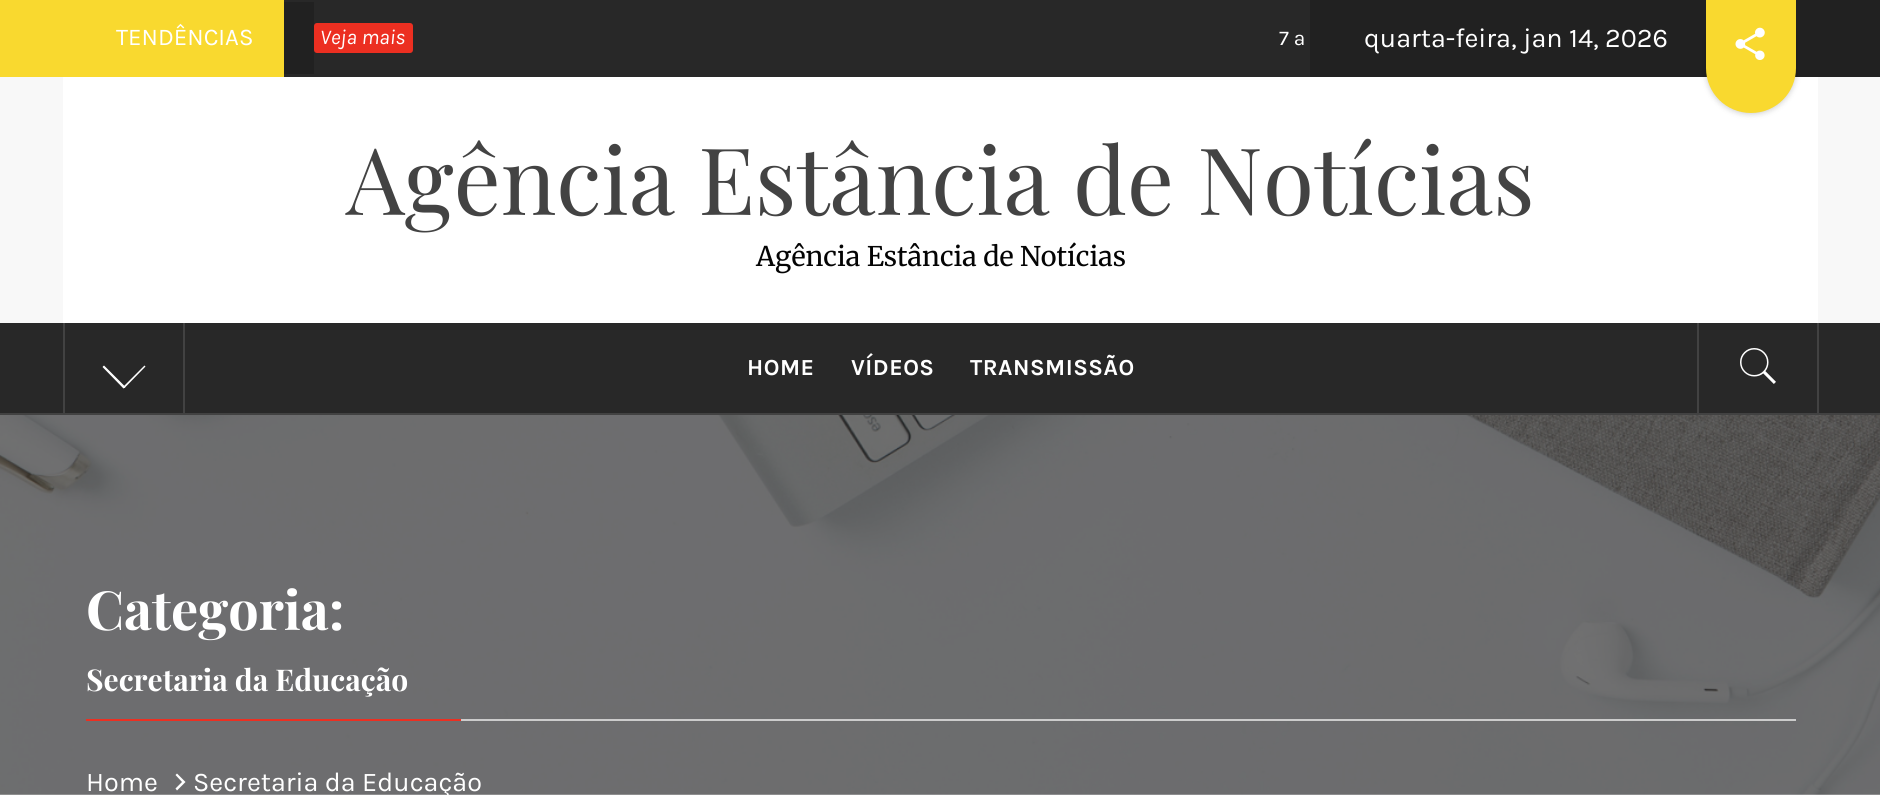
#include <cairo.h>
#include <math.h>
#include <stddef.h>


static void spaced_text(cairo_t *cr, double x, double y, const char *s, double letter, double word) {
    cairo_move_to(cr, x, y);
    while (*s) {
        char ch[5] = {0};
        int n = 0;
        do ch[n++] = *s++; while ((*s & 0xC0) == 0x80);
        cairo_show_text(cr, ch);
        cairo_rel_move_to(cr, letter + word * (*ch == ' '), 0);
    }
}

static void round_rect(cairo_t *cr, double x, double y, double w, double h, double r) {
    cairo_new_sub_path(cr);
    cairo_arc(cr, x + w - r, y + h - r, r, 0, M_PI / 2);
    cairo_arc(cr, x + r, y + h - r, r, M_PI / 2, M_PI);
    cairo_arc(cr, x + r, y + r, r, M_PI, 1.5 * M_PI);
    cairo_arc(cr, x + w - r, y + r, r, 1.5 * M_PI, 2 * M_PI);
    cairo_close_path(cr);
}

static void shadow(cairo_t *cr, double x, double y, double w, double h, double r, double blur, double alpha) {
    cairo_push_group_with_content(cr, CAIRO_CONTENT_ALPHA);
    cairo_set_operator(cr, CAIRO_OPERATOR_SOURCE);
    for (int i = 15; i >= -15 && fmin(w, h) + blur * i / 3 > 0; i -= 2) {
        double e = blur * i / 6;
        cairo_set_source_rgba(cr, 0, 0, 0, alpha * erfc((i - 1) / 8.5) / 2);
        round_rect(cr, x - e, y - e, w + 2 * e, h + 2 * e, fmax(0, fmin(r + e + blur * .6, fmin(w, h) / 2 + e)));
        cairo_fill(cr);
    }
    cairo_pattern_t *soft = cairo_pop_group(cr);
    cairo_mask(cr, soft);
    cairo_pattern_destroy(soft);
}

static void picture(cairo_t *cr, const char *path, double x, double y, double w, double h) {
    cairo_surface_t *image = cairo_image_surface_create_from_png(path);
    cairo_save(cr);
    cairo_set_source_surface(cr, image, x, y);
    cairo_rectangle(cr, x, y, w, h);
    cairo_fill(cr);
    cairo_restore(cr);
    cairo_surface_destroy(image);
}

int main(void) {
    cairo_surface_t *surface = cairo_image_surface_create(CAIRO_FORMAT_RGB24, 1880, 795);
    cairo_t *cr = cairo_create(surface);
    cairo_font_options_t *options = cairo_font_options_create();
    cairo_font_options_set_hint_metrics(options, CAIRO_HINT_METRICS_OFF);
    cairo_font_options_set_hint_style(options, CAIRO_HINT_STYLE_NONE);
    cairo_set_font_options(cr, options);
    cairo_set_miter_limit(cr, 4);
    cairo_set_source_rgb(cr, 0.969, 0.969, 0.969);
    cairo_paint(cr);
    cairo_set_source_rgb(cr, 0.973, 0.851, 0.184);
    cairo_rectangle(cr, 0, 0, 284, 77);
    cairo_fill(cr);
    cairo_set_source_rgb(cr, 0.129, 0.129, 0.129);
    cairo_rectangle(cr, 1310, 0, 570, 77);
    cairo_fill(cr);
    cairo_select_font_face(cr, "Karla", CAIRO_FONT_SLANT_NORMAL, CAIRO_FONT_WEIGHT_NORMAL);
    cairo_set_font_size(cr, 24);
    cairo_set_source_rgb(cr, 1, 1, 1);
    cairo_move_to(cr, 116, 45);
    cairo_show_text(cr, "TENDÊNCIAS");
    cairo_set_source_rgb(cr, 0.157, 0.157, 0.157);
    cairo_rectangle(cr, 284, 0, 1026, 77);
    cairo_fill(cr);
    cairo_set_source_rgb(cr, 0.922, 0.184, 0.129);
    round_rect(cr, 314, 23, 99, 30, 3);
    cairo_fill(cr);
    cairo_set_source_rgb(cr, 0.129, 0.129, 0.129);
    cairo_rectangle(cr, 284, 2, 30, 72);
    cairo_fill(cr);
    cairo_select_font_face(cr, "Karla", CAIRO_FONT_SLANT_ITALIC, CAIRO_FONT_WEIGHT_NORMAL);
    cairo_set_font_size(cr, 21);
    cairo_set_source_rgb(cr, 1, 1, 1);
    cairo_move_to(cr, 320, 44);
    cairo_show_text(cr, "Veja mais");
    cairo_select_font_face(cr, "Karla", CAIRO_FONT_SLANT_NORMAL, CAIRO_FONT_WEIGHT_NORMAL);
    cairo_move_to(cr, 1279, 45);
    cairo_show_text(cr, "7 a");
    cairo_set_font_size(cr, 27);
    cairo_move_to(cr, 1364, 47);
    cairo_show_text(cr, "quarta-feira, jan 14, 2026");
    cairo_rectangle(cr, 63, 77, 1755, 246);
    cairo_fill(cr);
    cairo_set_source_rgb(cr, 0, 0, 0);
    shadow(cr, 1706, 2, 90, 112, 45, 3, 0.2);
    cairo_set_source_rgb(cr, 0.973, 0.851, 0.184);
    cairo_new_path(cr);
    cairo_move_to(cr, 1706, 0);
    cairo_line_to(cr, 1796, 0);
    cairo_line_to(cr, 1796, 68);
    cairo_curve_to(cr, 1796, 93, 1776, 113, 1751, 113);
    cairo_curve_to(cr, 1726, 113, 1706, 93, 1706, 68);
    cairo_close_path(cr);
    cairo_fill(cr);
    picture(cr, "img1.png", 1735, 27, 30, 33);
    cairo_select_font_face(cr, "Playfair Display", CAIRO_FONT_SLANT_NORMAL, CAIRO_FONT_WEIGHT_NORMAL);
    cairo_set_font_size(cr, 93);
    cairo_set_source_rgb(cr, 0.263, 0.263, 0.263);
    cairo_move_to(cr, 346, 215);
    cairo_show_text(cr, "Agência Estância de Notícias");
    cairo_select_font_face(cr, "Merriweather Light", CAIRO_FONT_SLANT_NORMAL, CAIRO_FONT_WEIGHT_NORMAL);
    cairo_set_font_size(cr, 27);
    cairo_set_source_rgb(cr, 0.016, 0.016, 0.016);
    cairo_move_to(cr, 756, 266);
    cairo_show_text(cr, "Agência Estância de Notícias");
    cairo_set_source_rgb(cr, 0.157, 0.157, 0.157);
    cairo_rectangle(cr, 0, 323, 1880, 90);
    cairo_fill(cr);
    cairo_set_source_rgb(cr, 0.259, 0.259, 0.259);
    cairo_rectangle(cr, 0, 413, 1880, 2);
    cairo_fill(cr);
    cairo_rectangle(cr, 1817, 323, 2, 90);
    cairo_fill(cr);
    cairo_rectangle(cr, 63, 323, 2, 90);
    cairo_fill(cr);
    cairo_rectangle(cr, 183, 323, 2, 90);
    cairo_fill(cr);
    cairo_set_source_rgb(cr, 1, 1, 1);
    cairo_new_path(cr);
    cairo_move_to(cr, 103.5, 366);
    cairo_line_to(cr, 125, 387.5);
    cairo_line_to(cr, 123.5, 388.5);
    cairo_line_to(cr, 102.5, 367);
    cairo_close_path(cr);
    cairo_fill(cr);
    cairo_new_path(cr);
    cairo_move_to(cr, 144.5, 365.5);
    cairo_line_to(cr, 145.5, 366.5);
    cairo_line_to(cr, 124.5, 388);
    cairo_line_to(cr, 123, 387);
    cairo_close_path(cr);
    cairo_fill(cr);
    cairo_new_path(cr);
    cairo_move_to(cr, 104, 365.5);
    cairo_line_to(cr, 125.5, 387);
    cairo_line_to(cr, 124.5, 388);
    cairo_line_to(cr, 103, 366.5);
    cairo_close_path(cr);
    cairo_fill(cr);
    cairo_select_font_face(cr, "Karla", CAIRO_FONT_SLANT_NORMAL, CAIRO_FONT_WEIGHT_BOLD);
    cairo_set_font_size(cr, 23);
    spaced_text(cr, 747, 375, "HOME", 0.5, 0);
    spaced_text(cr, 851, 375, "VÍDEOS", 0.5, 0);
    spaced_text(cr, 970, 375, "TRANSMISSÃO", 0.5, 0);
    cairo_set_source_rgb(cr, 0.259, 0.259, 0.259);
    cairo_rectangle(cr, 1697, 323, 2, 90);
    cairo_fill(cr);
    picture(cr, "img2.png", 1740, 348, 36, 36);
    picture(cr, "img3.png", 0, 415, 1880, 380);
    cairo_set_source_rgb(cr, 0.8, 0.8, 0.8);
    cairo_rectangle(cr, 461, 719, 1335, 2);
    cairo_fill(cr);
    cairo_select_font_face(cr, "Playfair Display", CAIRO_FONT_SLANT_NORMAL, CAIRO_FONT_WEIGHT_BOLD);
    cairo_set_font_size(cr, 54);
    cairo_set_source_rgb(cr, 1, 1, 1);
    cairo_move_to(cr, 86, 630);
    cairo_show_text(cr, "Categoria:");
    cairo_set_font_size(cr, 30);
    cairo_move_to(cr, 86, 691);
    cairo_show_text(cr, "Secretaria da Educação");
    cairo_set_source_rgb(cr, 0.922, 0.184, 0.129);
    cairo_rectangle(cr, 86, 719, 375, 2);
    cairo_fill(cr);
    cairo_select_font_face(cr, "Karla", CAIRO_FONT_SLANT_NORMAL, CAIRO_FONT_WEIGHT_NORMAL);
    cairo_set_font_size(cr, 27);
    cairo_set_source_rgb(cr, 1, 1, 1);
    cairo_move_to(cr, 86, 791);
    cairo_show_text(cr, "Home");
    cairo_new_path(cr);
    cairo_move_to(cr, 175.5, 775);
    cairo_line_to(cr, 177, 773.5);
    cairo_line_to(cr, 185.5, 782);
    cairo_line_to(cr, 177, 790.5);
    cairo_line_to(cr, 175.5, 788.5);
    cairo_line_to(cr, 182, 782);
    cairo_close_path(cr);
    cairo_fill(cr);
    cairo_move_to(cr, 193, 791);
    cairo_show_text(cr, "Secretaria da Educação");
    cairo_surface_write_to_png(surface, "page.png");
    cairo_font_options_destroy(options);
    cairo_destroy(cr);
    cairo_surface_destroy(surface);
    return 0;
}
